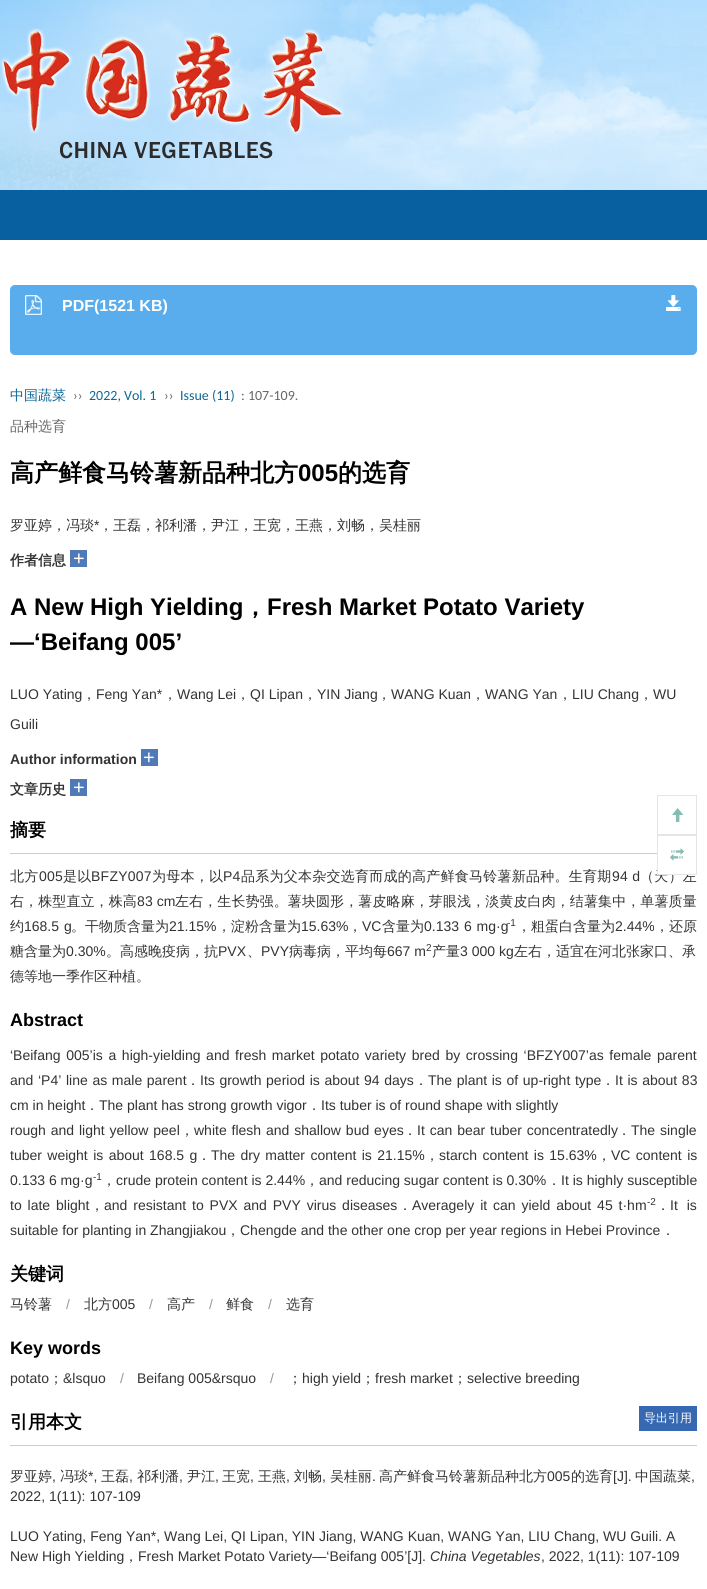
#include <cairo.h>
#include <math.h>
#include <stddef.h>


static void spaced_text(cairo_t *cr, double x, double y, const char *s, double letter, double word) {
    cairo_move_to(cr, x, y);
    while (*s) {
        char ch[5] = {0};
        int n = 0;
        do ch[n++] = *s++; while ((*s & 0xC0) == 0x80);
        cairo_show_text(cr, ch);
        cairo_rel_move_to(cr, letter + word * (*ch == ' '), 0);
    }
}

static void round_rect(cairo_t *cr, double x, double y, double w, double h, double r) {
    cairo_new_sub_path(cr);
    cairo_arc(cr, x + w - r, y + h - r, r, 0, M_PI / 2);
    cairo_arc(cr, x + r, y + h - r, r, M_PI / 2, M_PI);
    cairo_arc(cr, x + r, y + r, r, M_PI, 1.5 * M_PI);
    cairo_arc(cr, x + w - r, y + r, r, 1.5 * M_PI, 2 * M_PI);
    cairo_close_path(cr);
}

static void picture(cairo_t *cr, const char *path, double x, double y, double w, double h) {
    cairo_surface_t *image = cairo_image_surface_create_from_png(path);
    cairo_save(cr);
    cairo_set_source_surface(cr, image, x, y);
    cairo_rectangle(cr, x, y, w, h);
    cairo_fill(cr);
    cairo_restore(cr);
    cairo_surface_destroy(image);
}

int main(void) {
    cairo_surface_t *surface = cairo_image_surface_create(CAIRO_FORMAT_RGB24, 707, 1589);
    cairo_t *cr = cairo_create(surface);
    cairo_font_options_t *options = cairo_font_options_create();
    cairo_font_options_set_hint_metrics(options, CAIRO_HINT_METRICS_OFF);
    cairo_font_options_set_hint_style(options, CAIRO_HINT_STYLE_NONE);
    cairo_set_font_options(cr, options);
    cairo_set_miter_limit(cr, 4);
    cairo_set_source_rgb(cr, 1, 1, 1);
    cairo_paint(cr);
    picture(cr, "img1.png", 0, 0, 707, 190);
    picture(cr, "img2.png", 0, 28, 344, 131);
    cairo_set_source_rgb(cr, 0.035, 0.376, 0.631);
    cairo_rectangle(cr, 0, 190, 707, 50);
    cairo_fill(cr);
    cairo_set_source_rgb(cr, 0.353, 0.678, 0.925);
    round_rect(cr, 10, 285, 687, 70, 5);
    cairo_fill(cr);
    picture(cr, "img3.png", 25, 295, 17, 20);
    cairo_select_font_face(cr, "Liberation Sans", CAIRO_FONT_SLANT_NORMAL, CAIRO_FONT_WEIGHT_BOLD);
    cairo_set_font_size(cr, 16);
    cairo_set_source_rgb(cr, 1, 1, 1);
    cairo_move_to(cr, 62, 311);
    cairo_show_text(cr, "PDF(1521 KB)");
    picture(cr, "img4.png", 666, 295, 15, 16);
    cairo_select_font_face(cr, "WenQuanYi Zen Hei Medium", CAIRO_FONT_SLANT_NORMAL, CAIRO_FONT_WEIGHT_NORMAL);
    cairo_set_font_size(cr, 14);
    cairo_set_source_rgb(cr, 0.051, 0.404, 0.592);
    cairo_move_to(cr, 10, 400);
    cairo_show_text(cr, "中国蔬菜");
    cairo_select_font_face(cr, "Carlito", CAIRO_FONT_SLANT_NORMAL, CAIRO_FONT_WEIGHT_NORMAL);
    cairo_set_source_rgb(cr, 0.4, 0.4, 0.4);
    cairo_move_to(cr, 73, 400);
    cairo_show_text(cr, "››");
    cairo_set_source_rgb(cr, 0.051, 0.404, 0.592);
    cairo_move_to(cr, 89, 400);
    cairo_show_text(cr, "2022, Vol. 1");
    cairo_set_source_rgb(cr, 0.4, 0.4, 0.4);
    cairo_move_to(cr, 164, 400);
    cairo_show_text(cr, "››");
    cairo_set_source_rgb(cr, 0.051, 0.404, 0.592);
    cairo_move_to(cr, 180, 400);
    cairo_show_text(cr, "Issue (11)");
    cairo_set_source_rgb(cr, 0.4, 0.4, 0.4);
    cairo_move_to(cr, 241, 400);
    cairo_show_text(cr, ": 107-109.");
    cairo_select_font_face(cr, "WenQuanYi Zen Hei Medium", CAIRO_FONT_SLANT_NORMAL, CAIRO_FONT_WEIGHT_NORMAL);
    cairo_move_to(cr, 10, 431);
    cairo_show_text(cr, "品种选育");
    cairo_select_font_face(cr, "WenQuanYi Zen Hei", CAIRO_FONT_SLANT_NORMAL, CAIRO_FONT_WEIGHT_BOLD);
    cairo_set_font_size(cr, 24);
    cairo_set_source_rgb(cr, 0, 0, 0);
    cairo_move_to(cr, 10, 481);
    cairo_show_text(cr, "高产鲜食马铃薯新品种北方");
    cairo_select_font_face(cr, "Liberation Sans", CAIRO_FONT_SLANT_NORMAL, CAIRO_FONT_WEIGHT_BOLD);
    cairo_move_to(cr, 298, 481);
    cairo_show_text(cr, "005");
    cairo_select_font_face(cr, "WenQuanYi Zen Hei", CAIRO_FONT_SLANT_NORMAL, CAIRO_FONT_WEIGHT_BOLD);
    cairo_move_to(cr, 338, 481);
    cairo_show_text(cr, "的选育");
    cairo_select_font_face(cr, "WenQuanYi Zen Hei Medium", CAIRO_FONT_SLANT_NORMAL, CAIRO_FONT_WEIGHT_NORMAL);
    cairo_set_font_size(cr, 14);
    cairo_set_source_rgb(cr, 0.2, 0.2, 0.2);
    cairo_move_to(cr, 10, 530);
    cairo_show_text(cr, "罗亚婷，冯琰");
    cairo_select_font_face(cr, "Liberation Sans", CAIRO_FONT_SLANT_NORMAL, CAIRO_FONT_WEIGHT_NORMAL);
    cairo_move_to(cr, 94, 530);
    cairo_show_text(cr, "*");
    cairo_select_font_face(cr, "WenQuanYi Zen Hei Medium", CAIRO_FONT_SLANT_NORMAL, CAIRO_FONT_WEIGHT_NORMAL);
    cairo_move_to(cr, 99, 530);
    cairo_show_text(cr, "，王磊，祁利潘，尹江，王宽，王燕，刘畅，吴桂丽");
    cairo_select_font_face(cr, "WenQuanYi Zen Hei", CAIRO_FONT_SLANT_NORMAL, CAIRO_FONT_WEIGHT_BOLD);
    cairo_move_to(cr, 10, 565);
    cairo_show_text(cr, "作者信息");
    cairo_set_source_rgb(cr, 0.314, 0.475, 0.718);
    cairo_rectangle(cr, 70, 550, 17, 17);
    cairo_fill(cr);
    cairo_select_font_face(cr, "Liberation Sans", CAIRO_FONT_SLANT_NORMAL, CAIRO_FONT_WEIGHT_NORMAL);
    cairo_set_font_size(cr, 20);
    cairo_set_source_rgb(cr, 1, 1, 1);
    cairo_move_to(cr, 73, 565);
    cairo_show_text(cr, "+");
    cairo_select_font_face(cr, "Liberation Sans", CAIRO_FONT_SLANT_NORMAL, CAIRO_FONT_WEIGHT_BOLD);
    cairo_set_font_size(cr, 24);
    cairo_set_source_rgb(cr, 0, 0, 0);
    cairo_move_to(cr, 10, 615);
    cairo_show_text(cr, "A New High Yielding");
    cairo_select_font_face(cr, "WenQuanYi Zen Hei", CAIRO_FONT_SLANT_NORMAL, CAIRO_FONT_WEIGHT_BOLD);
    cairo_move_to(cr, 243, 615);
    cairo_show_text(cr, "，");
    cairo_select_font_face(cr, "Liberation Sans", CAIRO_FONT_SLANT_NORMAL, CAIRO_FONT_WEIGHT_BOLD);
    cairo_move_to(cr, 267, 615);
    cairo_show_text(cr, "Fresh Market Potato Variety");
    cairo_move_to(cr, 10, 650);
    cairo_show_text(cr, "—‘Beifang 005’");
    cairo_select_font_face(cr, "Liberation Sans", CAIRO_FONT_SLANT_NORMAL, CAIRO_FONT_WEIGHT_NORMAL);
    cairo_set_font_size(cr, 14);
    cairo_set_source_rgb(cr, 0.2, 0.2, 0.2);
    cairo_move_to(cr, 10, 699);
    cairo_show_text(cr, "LUO Yating");
    cairo_select_font_face(cr, "WenQuanYi Zen Hei Medium", CAIRO_FONT_SLANT_NORMAL, CAIRO_FONT_WEIGHT_NORMAL);
    cairo_move_to(cr, 82, 699);
    cairo_show_text(cr, "，");
    cairo_select_font_face(cr, "Liberation Sans", CAIRO_FONT_SLANT_NORMAL, CAIRO_FONT_WEIGHT_NORMAL);
    cairo_move_to(cr, 96, 699);
    cairo_show_text(cr, "Feng Yan*");
    cairo_select_font_face(cr, "WenQuanYi Zen Hei Medium", CAIRO_FONT_SLANT_NORMAL, CAIRO_FONT_WEIGHT_NORMAL);
    cairo_move_to(cr, 163, 699);
    cairo_show_text(cr, "，");
    cairo_select_font_face(cr, "Liberation Sans", CAIRO_FONT_SLANT_NORMAL, CAIRO_FONT_WEIGHT_NORMAL);
    cairo_move_to(cr, 177, 699);
    cairo_show_text(cr, "Wang Lei");
    cairo_select_font_face(cr, "WenQuanYi Zen Hei Medium", CAIRO_FONT_SLANT_NORMAL, CAIRO_FONT_WEIGHT_NORMAL);
    cairo_move_to(cr, 236, 699);
    cairo_show_text(cr, "，");
    cairo_select_font_face(cr, "Liberation Sans", CAIRO_FONT_SLANT_NORMAL, CAIRO_FONT_WEIGHT_NORMAL);
    cairo_move_to(cr, 250, 699);
    cairo_show_text(cr, "QI Lipan");
    cairo_select_font_face(cr, "WenQuanYi Zen Hei Medium", CAIRO_FONT_SLANT_NORMAL, CAIRO_FONT_WEIGHT_NORMAL);
    cairo_move_to(cr, 303, 699);
    cairo_show_text(cr, "，");
    cairo_select_font_face(cr, "Liberation Sans", CAIRO_FONT_SLANT_NORMAL, CAIRO_FONT_WEIGHT_NORMAL);
    cairo_move_to(cr, 317, 699);
    cairo_show_text(cr, "YIN Jiang");
    cairo_select_font_face(cr, "WenQuanYi Zen Hei Medium", CAIRO_FONT_SLANT_NORMAL, CAIRO_FONT_WEIGHT_NORMAL);
    cairo_move_to(cr, 377, 699);
    cairo_show_text(cr, "，");
    cairo_select_font_face(cr, "Liberation Sans", CAIRO_FONT_SLANT_NORMAL, CAIRO_FONT_WEIGHT_NORMAL);
    cairo_move_to(cr, 391, 699);
    cairo_show_text(cr, "WANG Kuan");
    cairo_select_font_face(cr, "WenQuanYi Zen Hei Medium", CAIRO_FONT_SLANT_NORMAL, CAIRO_FONT_WEIGHT_NORMAL);
    cairo_move_to(cr, 471, 699);
    cairo_show_text(cr, "，");
    cairo_select_font_face(cr, "Liberation Sans", CAIRO_FONT_SLANT_NORMAL, CAIRO_FONT_WEIGHT_NORMAL);
    cairo_move_to(cr, 485, 699);
    cairo_show_text(cr, "WANG Yan");
    cairo_select_font_face(cr, "WenQuanYi Zen Hei Medium", CAIRO_FONT_SLANT_NORMAL, CAIRO_FONT_WEIGHT_NORMAL);
    cairo_move_to(cr, 558, 699);
    cairo_show_text(cr, "，");
    cairo_select_font_face(cr, "Liberation Sans", CAIRO_FONT_SLANT_NORMAL, CAIRO_FONT_WEIGHT_NORMAL);
    cairo_move_to(cr, 572, 699);
    cairo_show_text(cr, "LIU Chang");
    cairo_select_font_face(cr, "WenQuanYi Zen Hei Medium", CAIRO_FONT_SLANT_NORMAL, CAIRO_FONT_WEIGHT_NORMAL);
    cairo_move_to(cr, 639, 699);
    cairo_show_text(cr, "，");
    cairo_select_font_face(cr, "Liberation Sans", CAIRO_FONT_SLANT_NORMAL, CAIRO_FONT_WEIGHT_NORMAL);
    cairo_move_to(cr, 653, 699);
    cairo_show_text(cr, "WU");
    cairo_move_to(cr, 10, 729);
    cairo_show_text(cr, "Guili");
    cairo_select_font_face(cr, "Liberation Sans", CAIRO_FONT_SLANT_NORMAL, CAIRO_FONT_WEIGHT_BOLD);
    cairo_move_to(cr, 10, 764);
    cairo_show_text(cr, "Author information");
    cairo_set_source_rgb(cr, 0.314, 0.475, 0.718);
    cairo_rectangle(cr, 141, 749, 17, 17);
    cairo_fill(cr);
    cairo_select_font_face(cr, "Liberation Sans", CAIRO_FONT_SLANT_NORMAL, CAIRO_FONT_WEIGHT_NORMAL);
    cairo_set_font_size(cr, 20);
    cairo_set_source_rgb(cr, 1, 1, 1);
    cairo_move_to(cr, 143, 764);
    cairo_show_text(cr, "+");
    cairo_select_font_face(cr, "WenQuanYi Zen Hei", CAIRO_FONT_SLANT_NORMAL, CAIRO_FONT_WEIGHT_BOLD);
    cairo_set_font_size(cr, 14);
    cairo_set_source_rgb(cr, 0.2, 0.2, 0.2);
    cairo_move_to(cr, 10, 794);
    cairo_show_text(cr, "文章历史");
    cairo_set_source_rgb(cr, 0.314, 0.475, 0.718);
    cairo_rectangle(cr, 70, 779, 17, 17);
    cairo_fill(cr);
    cairo_select_font_face(cr, "Liberation Sans", CAIRO_FONT_SLANT_NORMAL, CAIRO_FONT_WEIGHT_NORMAL);
    cairo_set_font_size(cr, 20);
    cairo_set_source_rgb(cr, 1, 1, 1);
    cairo_move_to(cr, 73, 794);
    cairo_show_text(cr, "+");
    cairo_set_source_rgb(cr, 0.8, 0.8, 0.8);
    cairo_rectangle(cr, 10, 853, 647, 1);
    cairo_fill(cr);
    cairo_select_font_face(cr, "WenQuanYi Zen Hei", CAIRO_FONT_SLANT_NORMAL, CAIRO_FONT_WEIGHT_BOLD);
    cairo_set_font_size(cr, 18);
    cairo_set_source_rgb(cr, 0, 0, 0);
    cairo_move_to(cr, 10, 836);
    cairo_show_text(cr, "摘要");
    cairo_select_font_face(cr, "WenQuanYi Zen Hei Medium", CAIRO_FONT_SLANT_NORMAL, CAIRO_FONT_WEIGHT_NORMAL);
    cairo_set_font_size(cr, 14);
    cairo_set_source_rgb(cr, 0.2, 0.2, 0.2);
    spaced_text(cr, 10, 881, "北方", 0.25, 0);
    cairo_select_font_face(cr, "Liberation Sans", CAIRO_FONT_SLANT_NORMAL, CAIRO_FONT_WEIGHT_NORMAL);
    spaced_text(cr, 39, 881, "005", 0.25, 0);
    cairo_select_font_face(cr, "WenQuanYi Zen Hei Medium", CAIRO_FONT_SLANT_NORMAL, CAIRO_FONT_WEIGHT_NORMAL);
    spaced_text(cr, 63, 881, "是以", 0.25, 0);
    cairo_select_font_face(cr, "Liberation Sans", CAIRO_FONT_SLANT_NORMAL, CAIRO_FONT_WEIGHT_NORMAL);
    spaced_text(cr, 91, 881, "BFZY007", 0.25, 0);
    cairo_select_font_face(cr, "WenQuanYi Zen Hei Medium", CAIRO_FONT_SLANT_NORMAL, CAIRO_FONT_WEIGHT_NORMAL);
    spaced_text(cr, 152, 881, "为母本，以", 0.25, 0);
    cairo_select_font_face(cr, "Liberation Sans", CAIRO_FONT_SLANT_NORMAL, CAIRO_FONT_WEIGHT_NORMAL);
    spaced_text(cr, 223, 881, "P4", 0.25, 0);
    cairo_select_font_face(cr, "WenQuanYi Zen Hei Medium", CAIRO_FONT_SLANT_NORMAL, CAIRO_FONT_WEIGHT_NORMAL);
    spaced_text(cr, 241, 881, "品系为父本杂交选育而成的高产鲜食马铃薯新品种。生育期", 0.25, 0);
    cairo_select_font_face(cr, "Liberation Sans", CAIRO_FONT_SLANT_NORMAL, CAIRO_FONT_WEIGHT_NORMAL);
    spaced_text(cr, 612, 881, "94 d", 0.25, 0);
    cairo_select_font_face(cr, "WenQuanYi Zen Hei Medium", CAIRO_FONT_SLANT_NORMAL, CAIRO_FONT_WEIGHT_NORMAL);
    spaced_text(cr, 640, 881, "（天）左", 0.25, 0);
    spaced_text(cr, 10, 906, "右，株型直立，株高", 0.1, 0);
    cairo_select_font_face(cr, "Liberation Sans", CAIRO_FONT_SLANT_NORMAL, CAIRO_FONT_WEIGHT_NORMAL);
    spaced_text(cr, 137, 906, "83 cm", 0.1, 0);
    cairo_select_font_face(cr, "WenQuanYi Zen Hei Medium", CAIRO_FONT_SLANT_NORMAL, CAIRO_FONT_WEIGHT_NORMAL);
    spaced_text(cr, 175, 906, "左右，生长势强。薯块圆形，薯皮略麻，芽眼浅，淡黄皮白肉，结薯集中，单薯质量", 0.1, 0);
    cairo_move_to(cr, 10, 931);
    cairo_show_text(cr, "约");
    cairo_select_font_face(cr, "Liberation Sans", CAIRO_FONT_SLANT_NORMAL, CAIRO_FONT_WEIGHT_NORMAL);
    spaced_text(cr, 24, 931, "168.5 g", 0, 1);
    cairo_select_font_face(cr, "WenQuanYi Zen Hei Medium", CAIRO_FONT_SLANT_NORMAL, CAIRO_FONT_WEIGHT_NORMAL);
    cairo_move_to(cr, 71, 931);
    cairo_show_text(cr, "。干物质含量为");
    cairo_select_font_face(cr, "Liberation Sans", CAIRO_FONT_SLANT_NORMAL, CAIRO_FONT_WEIGHT_NORMAL);
    cairo_move_to(cr, 169, 931);
    cairo_show_text(cr, "21.15%");
    cairo_select_font_face(cr, "WenQuanYi Zen Hei Medium", CAIRO_FONT_SLANT_NORMAL, CAIRO_FONT_WEIGHT_NORMAL);
    cairo_move_to(cr, 217, 931);
    cairo_show_text(cr, "，淀粉含量为");
    cairo_select_font_face(cr, "Liberation Sans", CAIRO_FONT_SLANT_NORMAL, CAIRO_FONT_WEIGHT_NORMAL);
    cairo_move_to(cr, 301, 931);
    cairo_show_text(cr, "15.63%");
    cairo_select_font_face(cr, "WenQuanYi Zen Hei Medium", CAIRO_FONT_SLANT_NORMAL, CAIRO_FONT_WEIGHT_NORMAL);
    cairo_move_to(cr, 348, 931);
    cairo_show_text(cr, "，");
    cairo_select_font_face(cr, "Liberation Sans", CAIRO_FONT_SLANT_NORMAL, CAIRO_FONT_WEIGHT_NORMAL);
    cairo_move_to(cr, 362, 931);
    cairo_show_text(cr, "VC");
    cairo_select_font_face(cr, "WenQuanYi Zen Hei Medium", CAIRO_FONT_SLANT_NORMAL, CAIRO_FONT_WEIGHT_NORMAL);
    cairo_move_to(cr, 382, 931);
    cairo_show_text(cr, "含量为");
    cairo_select_font_face(cr, "Liberation Sans", CAIRO_FONT_SLANT_NORMAL, CAIRO_FONT_WEIGHT_NORMAL);
    spaced_text(cr, 424, 931, "0.133 6 mg·g", 0, 1);
    cairo_set_font_size(cr, 10);
    cairo_move_to(cr, 507, 926);
    cairo_show_text(cr, "-1");
    cairo_select_font_face(cr, "WenQuanYi Zen Hei Medium", CAIRO_FONT_SLANT_NORMAL, CAIRO_FONT_WEIGHT_NORMAL);
    cairo_set_font_size(cr, 14);
    cairo_move_to(cr, 517, 931);
    cairo_show_text(cr, "，粗蛋白含量为");
    cairo_select_font_face(cr, "Liberation Sans", CAIRO_FONT_SLANT_NORMAL, CAIRO_FONT_WEIGHT_NORMAL);
    cairo_move_to(cr, 615, 931);
    cairo_show_text(cr, "2.44%");
    cairo_select_font_face(cr, "WenQuanYi Zen Hei Medium", CAIRO_FONT_SLANT_NORMAL, CAIRO_FONT_WEIGHT_NORMAL);
    cairo_move_to(cr, 655, 931);
    cairo_show_text(cr, "，还原");
    cairo_move_to(cr, 10, 956);
    cairo_show_text(cr, "糖含量为");
    cairo_select_font_face(cr, "Liberation Sans", CAIRO_FONT_SLANT_NORMAL, CAIRO_FONT_WEIGHT_NORMAL);
    cairo_move_to(cr, 66, 956);
    cairo_show_text(cr, "0.30%");
    cairo_select_font_face(cr, "WenQuanYi Zen Hei Medium", CAIRO_FONT_SLANT_NORMAL, CAIRO_FONT_WEIGHT_NORMAL);
    cairo_move_to(cr, 106, 956);
    cairo_show_text(cr, "。高感晚疫病，抗");
    cairo_select_font_face(cr, "Liberation Sans", CAIRO_FONT_SLANT_NORMAL, CAIRO_FONT_WEIGHT_NORMAL);
    cairo_move_to(cr, 218, 956);
    cairo_show_text(cr, "PVX");
    cairo_select_font_face(cr, "WenQuanYi Zen Hei Medium", CAIRO_FONT_SLANT_NORMAL, CAIRO_FONT_WEIGHT_NORMAL);
    cairo_move_to(cr, 247, 956);
    cairo_show_text(cr, "、");
    cairo_select_font_face(cr, "Liberation Sans", CAIRO_FONT_SLANT_NORMAL, CAIRO_FONT_WEIGHT_NORMAL);
    cairo_move_to(cr, 261, 956);
    cairo_show_text(cr, "PVY");
    cairo_select_font_face(cr, "WenQuanYi Zen Hei Medium", CAIRO_FONT_SLANT_NORMAL, CAIRO_FONT_WEIGHT_NORMAL);
    cairo_move_to(cr, 289, 956);
    cairo_show_text(cr, "病毒病，平均每");
    cairo_select_font_face(cr, "Liberation Sans", CAIRO_FONT_SLANT_NORMAL, CAIRO_FONT_WEIGHT_NORMAL);
    cairo_move_to(cr, 387, 956);
    cairo_show_text(cr, "667 m");
    cairo_set_font_size(cr, 10);
    cairo_move_to(cr, 426, 951);
    cairo_show_text(cr, "2");
    cairo_select_font_face(cr, "WenQuanYi Zen Hei Medium", CAIRO_FONT_SLANT_NORMAL, CAIRO_FONT_WEIGHT_NORMAL);
    cairo_set_font_size(cr, 14);
    cairo_move_to(cr, 432, 956);
    cairo_show_text(cr, "产量");
    cairo_select_font_face(cr, "Liberation Sans", CAIRO_FONT_SLANT_NORMAL, CAIRO_FONT_WEIGHT_NORMAL);
    cairo_move_to(cr, 460, 956);
    cairo_show_text(cr, "3 000 kg");
    cairo_select_font_face(cr, "WenQuanYi Zen Hei Medium", CAIRO_FONT_SLANT_NORMAL, CAIRO_FONT_WEIGHT_NORMAL);
    cairo_move_to(cr, 514, 956);
    cairo_show_text(cr, "左右，适宜在河北张家口、承");
    cairo_move_to(cr, 10, 981);
    cairo_show_text(cr, "德等地一季作区种植。");
    cairo_select_font_face(cr, "Liberation Sans", CAIRO_FONT_SLANT_NORMAL, CAIRO_FONT_WEIGHT_BOLD);
    cairo_set_font_size(cr, 18);
    cairo_set_source_rgb(cr, 0, 0, 0);
    cairo_move_to(cr, 10, 1026);
    cairo_show_text(cr, "Abstract");
    cairo_select_font_face(cr, "Liberation Sans", CAIRO_FONT_SLANT_NORMAL, CAIRO_FONT_WEIGHT_NORMAL);
    cairo_set_font_size(cr, 14);
    cairo_set_source_rgb(cr, 0.2, 0.2, 0.2);
    spaced_text(cr, 10, 1060, "‘Beifang 005’is a high-yielding and fresh market potato variety bred by crossing ‘BFZY007’as female parent", 0, 1.75);
    spaced_text(cr, 10, 1085, "and ‘P4’ line as male parent", 0, 0.75);
    cairo_select_font_face(cr, "WenQuanYi Zen Hei Medium", CAIRO_FONT_SLANT_NORMAL, CAIRO_FONT_WEIGHT_NORMAL);
    cairo_move_to(cr, 186, 1085);
    cairo_show_text(cr, "．");
    cairo_select_font_face(cr, "Liberation Sans", CAIRO_FONT_SLANT_NORMAL, CAIRO_FONT_WEIGHT_NORMAL);
    spaced_text(cr, 200, 1085, "Its growth period is about 94 days", 0, 0.75);
    cairo_select_font_face(cr, "WenQuanYi Zen Hei Medium", CAIRO_FONT_SLANT_NORMAL, CAIRO_FONT_WEIGHT_NORMAL);
    cairo_move_to(cr, 414, 1085);
    cairo_show_text(cr, "．");
    cairo_select_font_face(cr, "Liberation Sans", CAIRO_FONT_SLANT_NORMAL, CAIRO_FONT_WEIGHT_NORMAL);
    spaced_text(cr, 428, 1085, "The plant is of up-right type", 0, 0.75);
    cairo_select_font_face(cr, "WenQuanYi Zen Hei Medium", CAIRO_FONT_SLANT_NORMAL, CAIRO_FONT_WEIGHT_NORMAL);
    cairo_move_to(cr, 601, 1085);
    cairo_show_text(cr, "．");
    cairo_select_font_face(cr, "Liberation Sans", CAIRO_FONT_SLANT_NORMAL, CAIRO_FONT_WEIGHT_NORMAL);
    spaced_text(cr, 615, 1085, "It is about 83", 0, 0.75);
    cairo_move_to(cr, 10, 1110);
    cairo_show_text(cr, "cm in height");
    cairo_select_font_face(cr, "WenQuanYi Zen Hei Medium", CAIRO_FONT_SLANT_NORMAL, CAIRO_FONT_WEIGHT_NORMAL);
    cairo_move_to(cr, 85, 1110);
    cairo_show_text(cr, "．");
    cairo_select_font_face(cr, "Liberation Sans", CAIRO_FONT_SLANT_NORMAL, CAIRO_FONT_WEIGHT_NORMAL);
    cairo_move_to(cr, 99, 1110);
    cairo_show_text(cr, "The plant has strong growth vigor");
    cairo_select_font_face(cr, "WenQuanYi Zen Hei Medium", CAIRO_FONT_SLANT_NORMAL, CAIRO_FONT_WEIGHT_NORMAL);
    cairo_move_to(cr, 307, 1110);
    cairo_show_text(cr, "．");
    cairo_select_font_face(cr, "Liberation Sans", CAIRO_FONT_SLANT_NORMAL, CAIRO_FONT_WEIGHT_NORMAL);
    cairo_move_to(cr, 321, 1110);
    cairo_show_text(cr, "Its tuber is of round shape with slightly");
    spaced_text(cr, 10, 1135, "rough and light yellow peel", 0, 1);
    cairo_select_font_face(cr, "WenQuanYi Zen Hei Medium", CAIRO_FONT_SLANT_NORMAL, CAIRO_FONT_WEIGHT_NORMAL);
    cairo_move_to(cr, 180, 1135);
    cairo_show_text(cr, "，");
    cairo_select_font_face(cr, "Liberation Sans", CAIRO_FONT_SLANT_NORMAL, CAIRO_FONT_WEIGHT_NORMAL);
    spaced_text(cr, 194, 1135, "white flesh and shallow bud eyes", 0, 1);
    cairo_select_font_face(cr, "WenQuanYi Zen Hei Medium", CAIRO_FONT_SLANT_NORMAL, CAIRO_FONT_WEIGHT_NORMAL);
    cairo_move_to(cr, 403, 1135);
    cairo_show_text(cr, "．");
    cairo_select_font_face(cr, "Liberation Sans", CAIRO_FONT_SLANT_NORMAL, CAIRO_FONT_WEIGHT_NORMAL);
    spaced_text(cr, 417, 1135, "It can bear tuber concentratedly", 0, 1);
    cairo_select_font_face(cr, "WenQuanYi Zen Hei Medium", CAIRO_FONT_SLANT_NORMAL, CAIRO_FONT_WEIGHT_NORMAL);
    cairo_move_to(cr, 617, 1135);
    cairo_show_text(cr, "．");
    cairo_select_font_face(cr, "Liberation Sans", CAIRO_FONT_SLANT_NORMAL, CAIRO_FONT_WEIGHT_NORMAL);
    spaced_text(cr, 631, 1135, "The single", 0, 1);
    spaced_text(cr, 10, 1160, "tuber weight is about 168.5 g", 0, 1.5);
    cairo_select_font_face(cr, "WenQuanYi Zen Hei Medium", CAIRO_FONT_SLANT_NORMAL, CAIRO_FONT_WEIGHT_NORMAL);
    cairo_move_to(cr, 197, 1160);
    cairo_show_text(cr, "．");
    cairo_select_font_face(cr, "Liberation Sans", CAIRO_FONT_SLANT_NORMAL, CAIRO_FONT_WEIGHT_NORMAL);
    spaced_text(cr, 211, 1160, "The dry matter content is 21.15%", 0, 1.5);
    cairo_select_font_face(cr, "WenQuanYi Zen Hei Medium", CAIRO_FONT_SLANT_NORMAL, CAIRO_FONT_WEIGHT_NORMAL);
    cairo_move_to(cr, 425, 1160);
    cairo_show_text(cr, "，");
    cairo_select_font_face(cr, "Liberation Sans", CAIRO_FONT_SLANT_NORMAL, CAIRO_FONT_WEIGHT_NORMAL);
    spaced_text(cr, 439, 1160, "starch content is 15.63%", 0, 1.5);
    cairo_select_font_face(cr, "WenQuanYi Zen Hei Medium", CAIRO_FONT_SLANT_NORMAL, CAIRO_FONT_WEIGHT_NORMAL);
    cairo_move_to(cr, 597, 1160);
    cairo_show_text(cr, "，");
    cairo_select_font_face(cr, "Liberation Sans", CAIRO_FONT_SLANT_NORMAL, CAIRO_FONT_WEIGHT_NORMAL);
    spaced_text(cr, 611, 1160, "VC content is", 0, 1.5);
    cairo_move_to(cr, 10, 1185);
    cairo_show_text(cr, "0.133 6 mg·g");
    cairo_set_font_size(cr, 10);
    cairo_move_to(cr, 93, 1180);
    cairo_show_text(cr, "-1");
    cairo_select_font_face(cr, "WenQuanYi Zen Hei Medium", CAIRO_FONT_SLANT_NORMAL, CAIRO_FONT_WEIGHT_NORMAL);
    cairo_set_font_size(cr, 14);
    cairo_move_to(cr, 102, 1185);
    cairo_show_text(cr, "，");
    cairo_select_font_face(cr, "Liberation Sans", CAIRO_FONT_SLANT_NORMAL, CAIRO_FONT_WEIGHT_NORMAL);
    cairo_move_to(cr, 116, 1185);
    cairo_show_text(cr, "crude protein content is 2.44%");
    cairo_select_font_face(cr, "WenQuanYi Zen Hei Medium", CAIRO_FONT_SLANT_NORMAL, CAIRO_FONT_WEIGHT_NORMAL);
    cairo_move_to(cr, 305, 1185);
    cairo_show_text(cr, "，");
    cairo_select_font_face(cr, "Liberation Sans", CAIRO_FONT_SLANT_NORMAL, CAIRO_FONT_WEIGHT_NORMAL);
    cairo_move_to(cr, 319, 1185);
    cairo_show_text(cr, "and reducing sugar content is 0.30%");
    cairo_select_font_face(cr, "WenQuanYi Zen Hei Medium", CAIRO_FONT_SLANT_NORMAL, CAIRO_FONT_WEIGHT_NORMAL);
    cairo_move_to(cr, 547, 1185);
    cairo_show_text(cr, "．");
    cairo_select_font_face(cr, "Liberation Sans", CAIRO_FONT_SLANT_NORMAL, CAIRO_FONT_WEIGHT_NORMAL);
    cairo_move_to(cr, 561, 1185);
    cairo_show_text(cr, "It is highly susceptible");
    spaced_text(cr, 10, 1210, "to late blight", 0, 2);
    cairo_select_font_face(cr, "WenQuanYi Zen Hei Medium", CAIRO_FONT_SLANT_NORMAL, CAIRO_FONT_WEIGHT_NORMAL);
    cairo_move_to(cr, 90, 1210);
    cairo_show_text(cr, "，");
    cairo_select_font_face(cr, "Liberation Sans", CAIRO_FONT_SLANT_NORMAL, CAIRO_FONT_WEIGHT_NORMAL);
    spaced_text(cr, 104, 1210, "and resistant to PVX and PVY virus diseases", 0, 2);
    cairo_select_font_face(cr, "WenQuanYi Zen Hei Medium", CAIRO_FONT_SLANT_NORMAL, CAIRO_FONT_WEIGHT_NORMAL);
    cairo_move_to(cr, 398, 1210);
    cairo_show_text(cr, "．");
    cairo_select_font_face(cr, "Liberation Sans", CAIRO_FONT_SLANT_NORMAL, CAIRO_FONT_WEIGHT_NORMAL);
    spaced_text(cr, 412, 1210, "Averagely it can yield about 45 t·hm", 0, 2);
    cairo_set_font_size(cr, 10);
    cairo_move_to(cr, 647, 1205);
    cairo_show_text(cr, "-2");
    cairo_select_font_face(cr, "WenQuanYi Zen Hei Medium", CAIRO_FONT_SLANT_NORMAL, CAIRO_FONT_WEIGHT_NORMAL);
    cairo_set_font_size(cr, 14);
    cairo_move_to(cr, 656, 1210);
    cairo_show_text(cr, "．");
    cairo_select_font_face(cr, "Liberation Sans", CAIRO_FONT_SLANT_NORMAL, CAIRO_FONT_WEIGHT_NORMAL);
    spaced_text(cr, 670, 1210, "It is", 0, 5);
    cairo_move_to(cr, 10, 1235);
    cairo_show_text(cr, "suitable for planting in Zhangjiakou");
    cairo_select_font_face(cr, "WenQuanYi Zen Hei Medium", CAIRO_FONT_SLANT_NORMAL, CAIRO_FONT_WEIGHT_NORMAL);
    cairo_move_to(cr, 226, 1235);
    cairo_show_text(cr, "，");
    cairo_select_font_face(cr, "Liberation Sans", CAIRO_FONT_SLANT_NORMAL, CAIRO_FONT_WEIGHT_NORMAL);
    cairo_move_to(cr, 240, 1235);
    cairo_show_text(cr, "Chengde and the other one crop per year regions in Hebei Province");
    cairo_select_font_face(cr, "WenQuanYi Zen Hei Medium", CAIRO_FONT_SLANT_NORMAL, CAIRO_FONT_WEIGHT_NORMAL);
    cairo_move_to(cr, 661, 1235);
    cairo_show_text(cr, "．");
    cairo_select_font_face(cr, "WenQuanYi Zen Hei", CAIRO_FONT_SLANT_NORMAL, CAIRO_FONT_WEIGHT_BOLD);
    cairo_set_font_size(cr, 18);
    cairo_set_source_rgb(cr, 0, 0, 0);
    cairo_move_to(cr, 10, 1280);
    cairo_show_text(cr, "关键词");
    cairo_select_font_face(cr, "WenQuanYi Zen Hei Medium", CAIRO_FONT_SLANT_NORMAL, CAIRO_FONT_WEIGHT_NORMAL);
    cairo_set_font_size(cr, 14);
    cairo_set_source_rgb(cr, 0.2, 0.2, 0.2);
    cairo_move_to(cr, 10, 1309);
    cairo_show_text(cr, "马铃薯");
    cairo_select_font_face(cr, "Liberation Sans", CAIRO_FONT_SLANT_NORMAL, CAIRO_FONT_WEIGHT_NORMAL);
    cairo_set_source_rgb(cr, 0.6, 0.6, 0.6);
    cairo_move_to(cr, 66, 1309);
    cairo_show_text(cr, "/");
    cairo_select_font_face(cr, "WenQuanYi Zen Hei Medium", CAIRO_FONT_SLANT_NORMAL, CAIRO_FONT_WEIGHT_NORMAL);
    cairo_set_source_rgb(cr, 0.2, 0.2, 0.2);
    cairo_move_to(cr, 84, 1309);
    cairo_show_text(cr, "北方");
    cairo_select_font_face(cr, "Liberation Sans", CAIRO_FONT_SLANT_NORMAL, CAIRO_FONT_WEIGHT_NORMAL);
    cairo_move_to(cr, 112, 1309);
    cairo_show_text(cr, "005");
    cairo_set_source_rgb(cr, 0.6, 0.6, 0.6);
    cairo_move_to(cr, 149, 1309);
    cairo_show_text(cr, "/");
    cairo_select_font_face(cr, "WenQuanYi Zen Hei Medium", CAIRO_FONT_SLANT_NORMAL, CAIRO_FONT_WEIGHT_NORMAL);
    cairo_set_source_rgb(cr, 0.2, 0.2, 0.2);
    cairo_move_to(cr, 167, 1309);
    cairo_show_text(cr, "高产");
    cairo_select_font_face(cr, "Liberation Sans", CAIRO_FONT_SLANT_NORMAL, CAIRO_FONT_WEIGHT_NORMAL);
    cairo_set_source_rgb(cr, 0.6, 0.6, 0.6);
    cairo_move_to(cr, 209, 1309);
    cairo_show_text(cr, "/");
    cairo_select_font_face(cr, "WenQuanYi Zen Hei Medium", CAIRO_FONT_SLANT_NORMAL, CAIRO_FONT_WEIGHT_NORMAL);
    cairo_set_source_rgb(cr, 0.2, 0.2, 0.2);
    cairo_move_to(cr, 226, 1309);
    cairo_show_text(cr, "鲜食");
    cairo_select_font_face(cr, "Liberation Sans", CAIRO_FONT_SLANT_NORMAL, CAIRO_FONT_WEIGHT_NORMAL);
    cairo_set_source_rgb(cr, 0.6, 0.6, 0.6);
    cairo_move_to(cr, 268, 1309);
    cairo_show_text(cr, "/");
    cairo_select_font_face(cr, "WenQuanYi Zen Hei Medium", CAIRO_FONT_SLANT_NORMAL, CAIRO_FONT_WEIGHT_NORMAL);
    cairo_set_source_rgb(cr, 0.2, 0.2, 0.2);
    cairo_move_to(cr, 286, 1309);
    cairo_show_text(cr, "选育");
    cairo_select_font_face(cr, "Liberation Sans", CAIRO_FONT_SLANT_NORMAL, CAIRO_FONT_WEIGHT_BOLD);
    cairo_set_font_size(cr, 18);
    cairo_set_source_rgb(cr, 0, 0, 0);
    cairo_move_to(cr, 10, 1354);
    cairo_show_text(cr, "Key words");
    cairo_select_font_face(cr, "Liberation Sans", CAIRO_FONT_SLANT_NORMAL, CAIRO_FONT_WEIGHT_NORMAL);
    cairo_set_font_size(cr, 14);
    cairo_set_source_rgb(cr, 0.2, 0.2, 0.2);
    cairo_move_to(cr, 10, 1383);
    cairo_show_text(cr, "potato");
    cairo_select_font_face(cr, "WenQuanYi Zen Hei Medium", CAIRO_FONT_SLANT_NORMAL, CAIRO_FONT_WEIGHT_NORMAL);
    cairo_move_to(cr, 49, 1383);
    cairo_show_text(cr, "；");
    cairo_select_font_face(cr, "Liberation Sans", CAIRO_FONT_SLANT_NORMAL, CAIRO_FONT_WEIGHT_NORMAL);
    cairo_move_to(cr, 63, 1383);
    cairo_show_text(cr, "&lsquo");
    cairo_set_source_rgb(cr, 0.6, 0.6, 0.6);
    cairo_move_to(cr, 120, 1383);
    cairo_show_text(cr, "/");
    cairo_set_source_rgb(cr, 0.2, 0.2, 0.2);
    cairo_move_to(cr, 137, 1383);
    cairo_show_text(cr, "Beifang 005&rsquo");
    cairo_set_source_rgb(cr, 0.6, 0.6, 0.6);
    cairo_move_to(cr, 270, 1383);
    cairo_show_text(cr, "/");
    cairo_select_font_face(cr, "WenQuanYi Zen Hei Medium", CAIRO_FONT_SLANT_NORMAL, CAIRO_FONT_WEIGHT_NORMAL);
    cairo_set_source_rgb(cr, 0.2, 0.2, 0.2);
    cairo_move_to(cr, 288, 1383);
    cairo_show_text(cr, "；");
    cairo_select_font_face(cr, "Liberation Sans", CAIRO_FONT_SLANT_NORMAL, CAIRO_FONT_WEIGHT_NORMAL);
    cairo_move_to(cr, 302, 1383);
    cairo_show_text(cr, "high yield");
    cairo_select_font_face(cr, "WenQuanYi Zen Hei Medium", CAIRO_FONT_SLANT_NORMAL, CAIRO_FONT_WEIGHT_NORMAL);
    cairo_move_to(cr, 361, 1383);
    cairo_show_text(cr, "；");
    cairo_select_font_face(cr, "Liberation Sans", CAIRO_FONT_SLANT_NORMAL, CAIRO_FONT_WEIGHT_NORMAL);
    cairo_move_to(cr, 375, 1383);
    cairo_show_text(cr, "fresh market");
    cairo_select_font_face(cr, "WenQuanYi Zen Hei Medium", CAIRO_FONT_SLANT_NORMAL, CAIRO_FONT_WEIGHT_NORMAL);
    cairo_move_to(cr, 453, 1383);
    cairo_show_text(cr, "；");
    cairo_select_font_face(cr, "Liberation Sans", CAIRO_FONT_SLANT_NORMAL, CAIRO_FONT_WEIGHT_NORMAL);
    cairo_move_to(cr, 467, 1383);
    cairo_show_text(cr, "selective breeding");
    cairo_set_source_rgb(cr, 0.8, 0.8, 0.8);
    cairo_rectangle(cr, 10, 1445, 687, 1);
    cairo_fill(cr);
    cairo_select_font_face(cr, "WenQuanYi Zen Hei", CAIRO_FONT_SLANT_NORMAL, CAIRO_FONT_WEIGHT_BOLD);
    cairo_set_font_size(cr, 18);
    cairo_set_source_rgb(cr, 0, 0, 0);
    cairo_move_to(cr, 10, 1428);
    cairo_show_text(cr, "引用本文");
    cairo_set_source_rgb(cr, 0.216, 0.412, 0.702);
    cairo_rectangle(cr, 639, 1406, 58, 25);
    cairo_fill(cr);
    cairo_select_font_face(cr, "WenQuanYi Zen Hei Medium", CAIRO_FONT_SLANT_NORMAL, CAIRO_FONT_WEIGHT_NORMAL);
    cairo_set_font_size(cr, 12);
    cairo_set_source_rgb(cr, 1, 1, 1);
    cairo_move_to(cr, 644, 1422);
    cairo_show_text(cr, "导出引用");
    cairo_set_font_size(cr, 14);
    cairo_set_source_rgb(cr, 0.2, 0.2, 0.2);
    cairo_move_to(cr, 10, 1481);
    cairo_show_text(cr, "罗亚婷");
    cairo_select_font_face(cr, "Liberation Sans", CAIRO_FONT_SLANT_NORMAL, CAIRO_FONT_WEIGHT_NORMAL);
    cairo_move_to(cr, 52, 1481);
    cairo_show_text(cr, ",");
    cairo_select_font_face(cr, "WenQuanYi Zen Hei Medium", CAIRO_FONT_SLANT_NORMAL, CAIRO_FONT_WEIGHT_NORMAL);
    cairo_move_to(cr, 60, 1481);
    cairo_show_text(cr, "冯琰");
    cairo_select_font_face(cr, "Liberation Sans", CAIRO_FONT_SLANT_NORMAL, CAIRO_FONT_WEIGHT_NORMAL);
    cairo_move_to(cr, 88, 1481);
    cairo_show_text(cr, "*,");
    cairo_select_font_face(cr, "WenQuanYi Zen Hei Medium", CAIRO_FONT_SLANT_NORMAL, CAIRO_FONT_WEIGHT_NORMAL);
    cairo_move_to(cr, 101, 1481);
    cairo_show_text(cr, "王磊");
    cairo_select_font_face(cr, "Liberation Sans", CAIRO_FONT_SLANT_NORMAL, CAIRO_FONT_WEIGHT_NORMAL);
    cairo_move_to(cr, 129, 1481);
    cairo_show_text(cr, ",");
    cairo_select_font_face(cr, "WenQuanYi Zen Hei Medium", CAIRO_FONT_SLANT_NORMAL, CAIRO_FONT_WEIGHT_NORMAL);
    cairo_move_to(cr, 137, 1481);
    cairo_show_text(cr, "祁利潘");
    cairo_select_font_face(cr, "Liberation Sans", CAIRO_FONT_SLANT_NORMAL, CAIRO_FONT_WEIGHT_NORMAL);
    cairo_move_to(cr, 179, 1481);
    cairo_show_text(cr, ",");
    cairo_select_font_face(cr, "WenQuanYi Zen Hei Medium", CAIRO_FONT_SLANT_NORMAL, CAIRO_FONT_WEIGHT_NORMAL);
    cairo_move_to(cr, 187, 1481);
    cairo_show_text(cr, "尹江");
    cairo_select_font_face(cr, "Liberation Sans", CAIRO_FONT_SLANT_NORMAL, CAIRO_FONT_WEIGHT_NORMAL);
    cairo_move_to(cr, 215, 1481);
    cairo_show_text(cr, ",");
    cairo_select_font_face(cr, "WenQuanYi Zen Hei Medium", CAIRO_FONT_SLANT_NORMAL, CAIRO_FONT_WEIGHT_NORMAL);
    cairo_move_to(cr, 222, 1481);
    cairo_show_text(cr, "王宽");
    cairo_select_font_face(cr, "Liberation Sans", CAIRO_FONT_SLANT_NORMAL, CAIRO_FONT_WEIGHT_NORMAL);
    cairo_move_to(cr, 250, 1481);
    cairo_show_text(cr, ",");
    cairo_select_font_face(cr, "WenQuanYi Zen Hei Medium", CAIRO_FONT_SLANT_NORMAL, CAIRO_FONT_WEIGHT_NORMAL);
    cairo_move_to(cr, 258, 1481);
    cairo_show_text(cr, "王燕");
    cairo_select_font_face(cr, "Liberation Sans", CAIRO_FONT_SLANT_NORMAL, CAIRO_FONT_WEIGHT_NORMAL);
    cairo_move_to(cr, 286, 1481);
    cairo_show_text(cr, ",");
    cairo_select_font_face(cr, "WenQuanYi Zen Hei Medium", CAIRO_FONT_SLANT_NORMAL, CAIRO_FONT_WEIGHT_NORMAL);
    cairo_move_to(cr, 294, 1481);
    cairo_show_text(cr, "刘畅");
    cairo_select_font_face(cr, "Liberation Sans", CAIRO_FONT_SLANT_NORMAL, CAIRO_FONT_WEIGHT_NORMAL);
    cairo_move_to(cr, 322, 1481);
    cairo_show_text(cr, ",");
    cairo_select_font_face(cr, "WenQuanYi Zen Hei Medium", CAIRO_FONT_SLANT_NORMAL, CAIRO_FONT_WEIGHT_NORMAL);
    cairo_move_to(cr, 330, 1481);
    cairo_show_text(cr, "吴桂丽");
    cairo_select_font_face(cr, "Liberation Sans", CAIRO_FONT_SLANT_NORMAL, CAIRO_FONT_WEIGHT_NORMAL);
    cairo_move_to(cr, 372, 1481);
    cairo_show_text(cr, ".");
    cairo_select_font_face(cr, "WenQuanYi Zen Hei Medium", CAIRO_FONT_SLANT_NORMAL, CAIRO_FONT_WEIGHT_NORMAL);
    cairo_move_to(cr, 379, 1481);
    cairo_show_text(cr, "高产鲜食马铃薯新品种北方");
    cairo_select_font_face(cr, "Liberation Sans", CAIRO_FONT_SLANT_NORMAL, CAIRO_FONT_WEIGHT_NORMAL);
    cairo_move_to(cr, 547, 1481);
    cairo_show_text(cr, "005");
    cairo_select_font_face(cr, "WenQuanYi Zen Hei Medium", CAIRO_FONT_SLANT_NORMAL, CAIRO_FONT_WEIGHT_NORMAL);
    cairo_move_to(cr, 571, 1481);
    cairo_show_text(cr, "的选育");
    cairo_select_font_face(cr, "Liberation Sans", CAIRO_FONT_SLANT_NORMAL, CAIRO_FONT_WEIGHT_NORMAL);
    cairo_move_to(cr, 613, 1481);
    cairo_show_text(cr, "[J].");
    cairo_select_font_face(cr, "WenQuanYi Zen Hei Medium", CAIRO_FONT_SLANT_NORMAL, CAIRO_FONT_WEIGHT_NORMAL);
    cairo_move_to(cr, 635, 1481);
    cairo_show_text(cr, "中国蔬菜");
    cairo_select_font_face(cr, "Liberation Sans", CAIRO_FONT_SLANT_NORMAL, CAIRO_FONT_WEIGHT_NORMAL);
    cairo_move_to(cr, 691, 1481);
    cairo_show_text(cr, ",");
    cairo_move_to(cr, 10, 1501);
    cairo_show_text(cr, "2022, 1(11): 107-109");
    cairo_move_to(cr, 10, 1541);
    cairo_show_text(cr, "LUO Yating, Feng Yan*, Wang Lei, QI Lipan, YIN Jiang, WANG Kuan, WANG Yan, LIU Chang, WU Guili. A");
    cairo_move_to(cr, 10, 1561);
    cairo_show_text(cr, "New High Yielding");
    cairo_select_font_face(cr, "WenQuanYi Zen Hei Medium", CAIRO_FONT_SLANT_NORMAL, CAIRO_FONT_WEIGHT_NORMAL);
    cairo_move_to(cr, 124, 1561);
    cairo_show_text(cr, "，");
    cairo_select_font_face(cr, "Liberation Sans", CAIRO_FONT_SLANT_NORMAL, CAIRO_FONT_WEIGHT_NORMAL);
    cairo_move_to(cr, 138, 1561);
    cairo_show_text(cr, "Fresh Market Potato Variety—‘Beifang 005’[J].");
    cairo_select_font_face(cr, "Liberation Sans", CAIRO_FONT_SLANT_ITALIC, CAIRO_FONT_WEIGHT_NORMAL);
    cairo_move_to(cr, 430, 1561);
    cairo_show_text(cr, "China Vegetables");
    cairo_select_font_face(cr, "Liberation Sans", CAIRO_FONT_SLANT_NORMAL, CAIRO_FONT_WEIGHT_NORMAL);
    cairo_move_to(cr, 541, 1561);
    cairo_show_text(cr, ", 2022, 1(11): 107-109");
    cairo_rectangle(cr, 657.5, 795.5, 39, 39);
    cairo_set_source_rgb(cr, 0.886, 0.902, 0.91);
    cairo_set_line_width(cr, 1);
    cairo_stroke(cr);
    picture(cr, "img5.png", 672, 808, 11, 14);
    cairo_set_source_rgb(cr, 1, 1, 1);
    cairo_rectangle(cr, 658, 869, 38, 5);
    cairo_fill(cr);
    cairo_rectangle(cr, 657.5, 835.5, 39, 39);
    cairo_set_source_rgb(cr, 0.886, 0.902, 0.91);
    cairo_stroke(cr);
    picture(cr, "img6.png", 670, 848, 14, 13);
    cairo_surface_write_to_png(surface, "page.png");
    cairo_font_options_destroy(options);
    cairo_destroy(cr);
    cairo_surface_destroy(surface);
    return 0;
}
